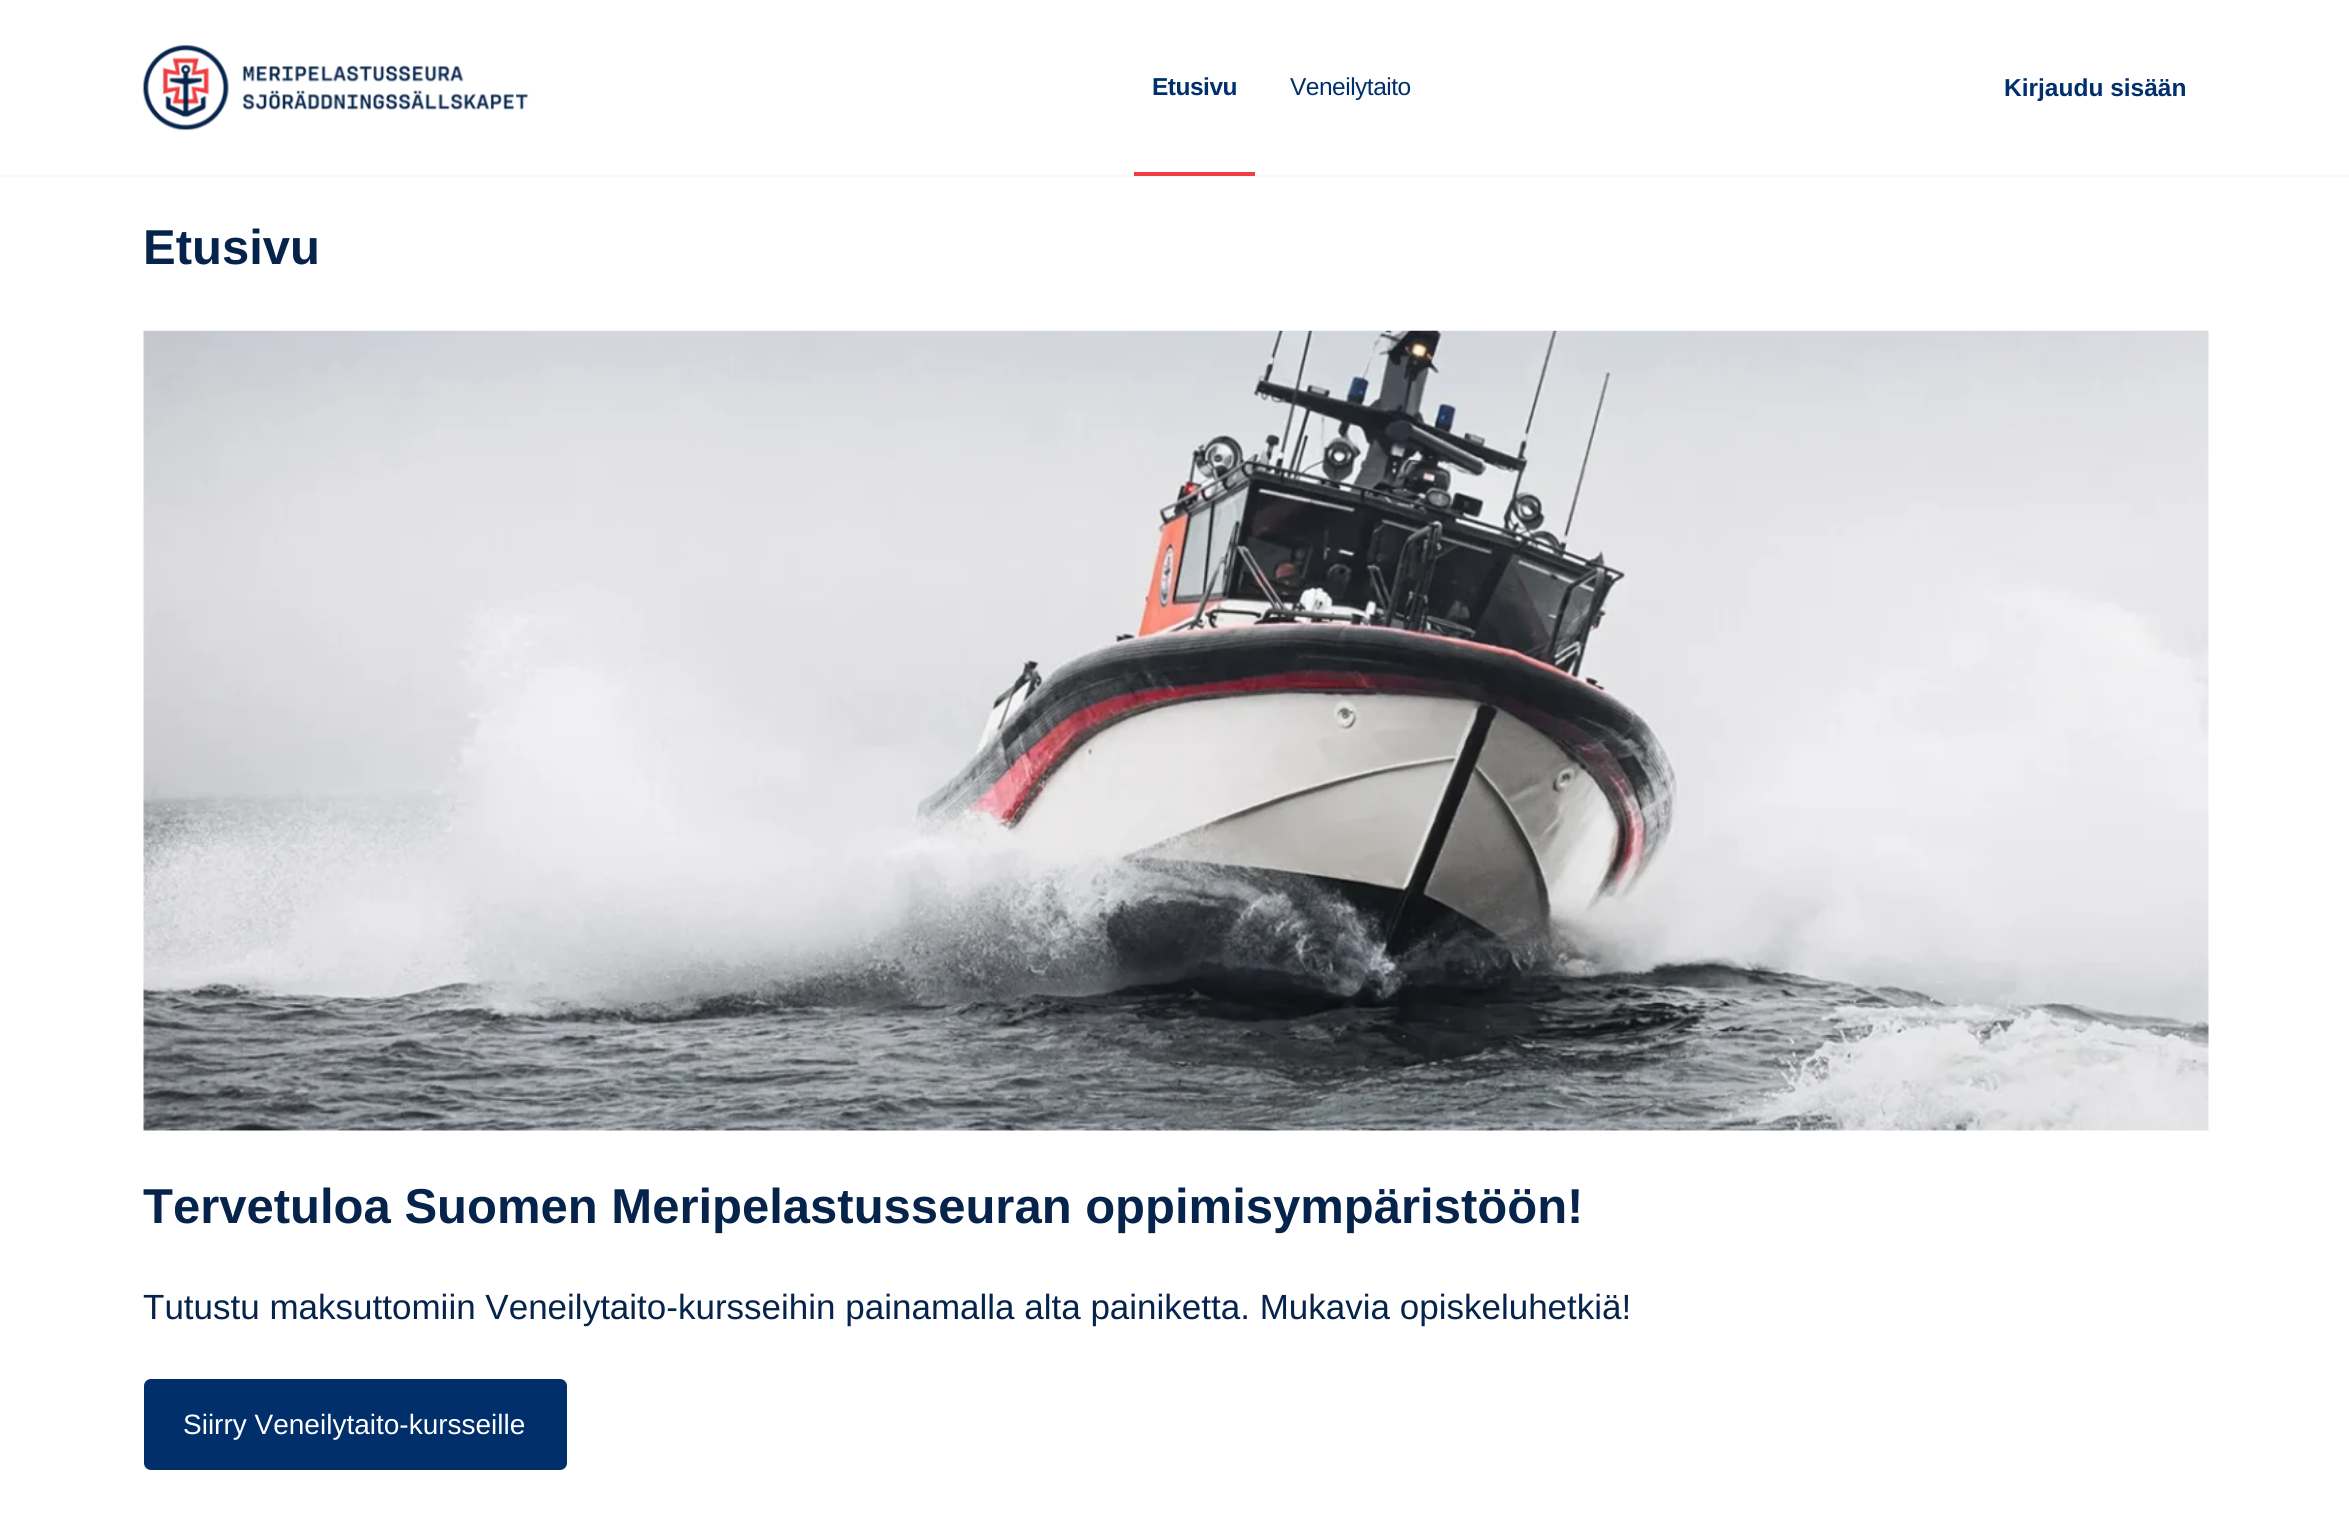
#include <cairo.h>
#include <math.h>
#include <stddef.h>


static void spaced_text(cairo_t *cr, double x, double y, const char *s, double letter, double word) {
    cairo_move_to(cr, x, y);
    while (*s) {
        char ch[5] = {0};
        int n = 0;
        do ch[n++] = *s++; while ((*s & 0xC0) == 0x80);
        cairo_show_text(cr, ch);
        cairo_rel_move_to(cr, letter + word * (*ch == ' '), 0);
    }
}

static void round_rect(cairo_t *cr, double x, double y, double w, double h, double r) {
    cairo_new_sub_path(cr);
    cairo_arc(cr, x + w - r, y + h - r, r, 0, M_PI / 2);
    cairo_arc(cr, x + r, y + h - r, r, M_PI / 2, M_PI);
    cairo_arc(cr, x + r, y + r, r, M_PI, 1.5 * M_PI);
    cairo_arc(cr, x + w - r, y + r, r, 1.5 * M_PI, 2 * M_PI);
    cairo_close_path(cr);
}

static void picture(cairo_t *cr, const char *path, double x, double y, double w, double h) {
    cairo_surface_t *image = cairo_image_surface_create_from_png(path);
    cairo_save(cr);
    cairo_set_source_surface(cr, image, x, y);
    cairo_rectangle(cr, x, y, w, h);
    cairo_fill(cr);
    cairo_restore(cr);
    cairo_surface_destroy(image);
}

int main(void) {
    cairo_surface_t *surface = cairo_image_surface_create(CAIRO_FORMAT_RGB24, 2349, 1531);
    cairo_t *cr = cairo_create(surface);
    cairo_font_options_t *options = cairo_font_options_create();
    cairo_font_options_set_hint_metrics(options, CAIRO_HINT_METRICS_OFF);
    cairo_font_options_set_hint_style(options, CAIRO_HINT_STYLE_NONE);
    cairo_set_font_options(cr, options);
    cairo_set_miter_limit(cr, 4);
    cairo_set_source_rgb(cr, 1, 1, 1);
    cairo_paint(cr);
    cairo_set_source_rgba(cr, 0.545, 0.553, 0.616, 0.05);
    cairo_rectangle(cr, 0, 175, 2349, 2);
    cairo_fill(cr);
    picture(cr, "img1.png", 142, 45, 387, 86);
    cairo_set_source_rgb(cr, 0.937, 0.243, 0.259);
    cairo_rectangle(cr, 1134, 172, 121, 4);
    cairo_fill(cr);
    cairo_select_font_face(cr, "Liberation Sans", CAIRO_FONT_SLANT_NORMAL, CAIRO_FONT_WEIGHT_BOLD);
    cairo_set_font_size(cr, 24.5);
    cairo_set_source_rgb(cr, 0, 0.184, 0.424);
    spaced_text(cr, 1152, 95, "Etusivu", -0.5, 0);
    cairo_select_font_face(cr, "Liberation Sans", CAIRO_FONT_SLANT_NORMAL, CAIRO_FONT_WEIGHT_NORMAL);
    spaced_text(cr, 1290, 95, "Veneilytaito", -0.5, 0);
    cairo_select_font_face(cr, "Liberation Sans", CAIRO_FONT_SLANT_NORMAL, CAIRO_FONT_WEIGHT_BOLD);
    cairo_move_to(cr, 2004, 96);
    cairo_show_text(cr, "Kirjaudu sisään");
    cairo_set_font_size(cr, 49);
    cairo_set_source_rgb(cr, 0.027, 0.141, 0.294);
    cairo_move_to(cr, 143, 264);
    cairo_show_text(cr, "Etusivu");
    picture(cr, "img2.png", 143, 330, 2066, 801);
    cairo_move_to(cr, 143, 1223);
    cairo_show_text(cr, "Tervetuloa Suomen Meripelastusseuran oppimisympäristöön!");
    cairo_select_font_face(cr, "Liberation Sans", CAIRO_FONT_SLANT_NORMAL, CAIRO_FONT_WEIGHT_NORMAL);
    cairo_set_font_size(cr, 35);
    cairo_move_to(cr, 143, 1319);
    cairo_show_text(cr, "Tutustu maksuttomiin Veneilytaito-kursseihin painamalla alta painiketta. Mukavia opiskeluhetkiä!");
    cairo_set_source_rgb(cr, 0, 0.184, 0.424);
    round_rect(cr, 144, 1379, 423, 91, 7);
    cairo_fill(cr);
    cairo_set_font_size(cr, 28);
    cairo_set_source_rgb(cr, 1, 1, 1);
    cairo_move_to(cr, 183, 1434);
    cairo_show_text(cr, "Siirry Veneilytaito-kursseille");
    cairo_surface_write_to_png(surface, "page.png");
    cairo_font_options_destroy(options);
    cairo_destroy(cr);
    cairo_surface_destroy(surface);
    return 0;
}
